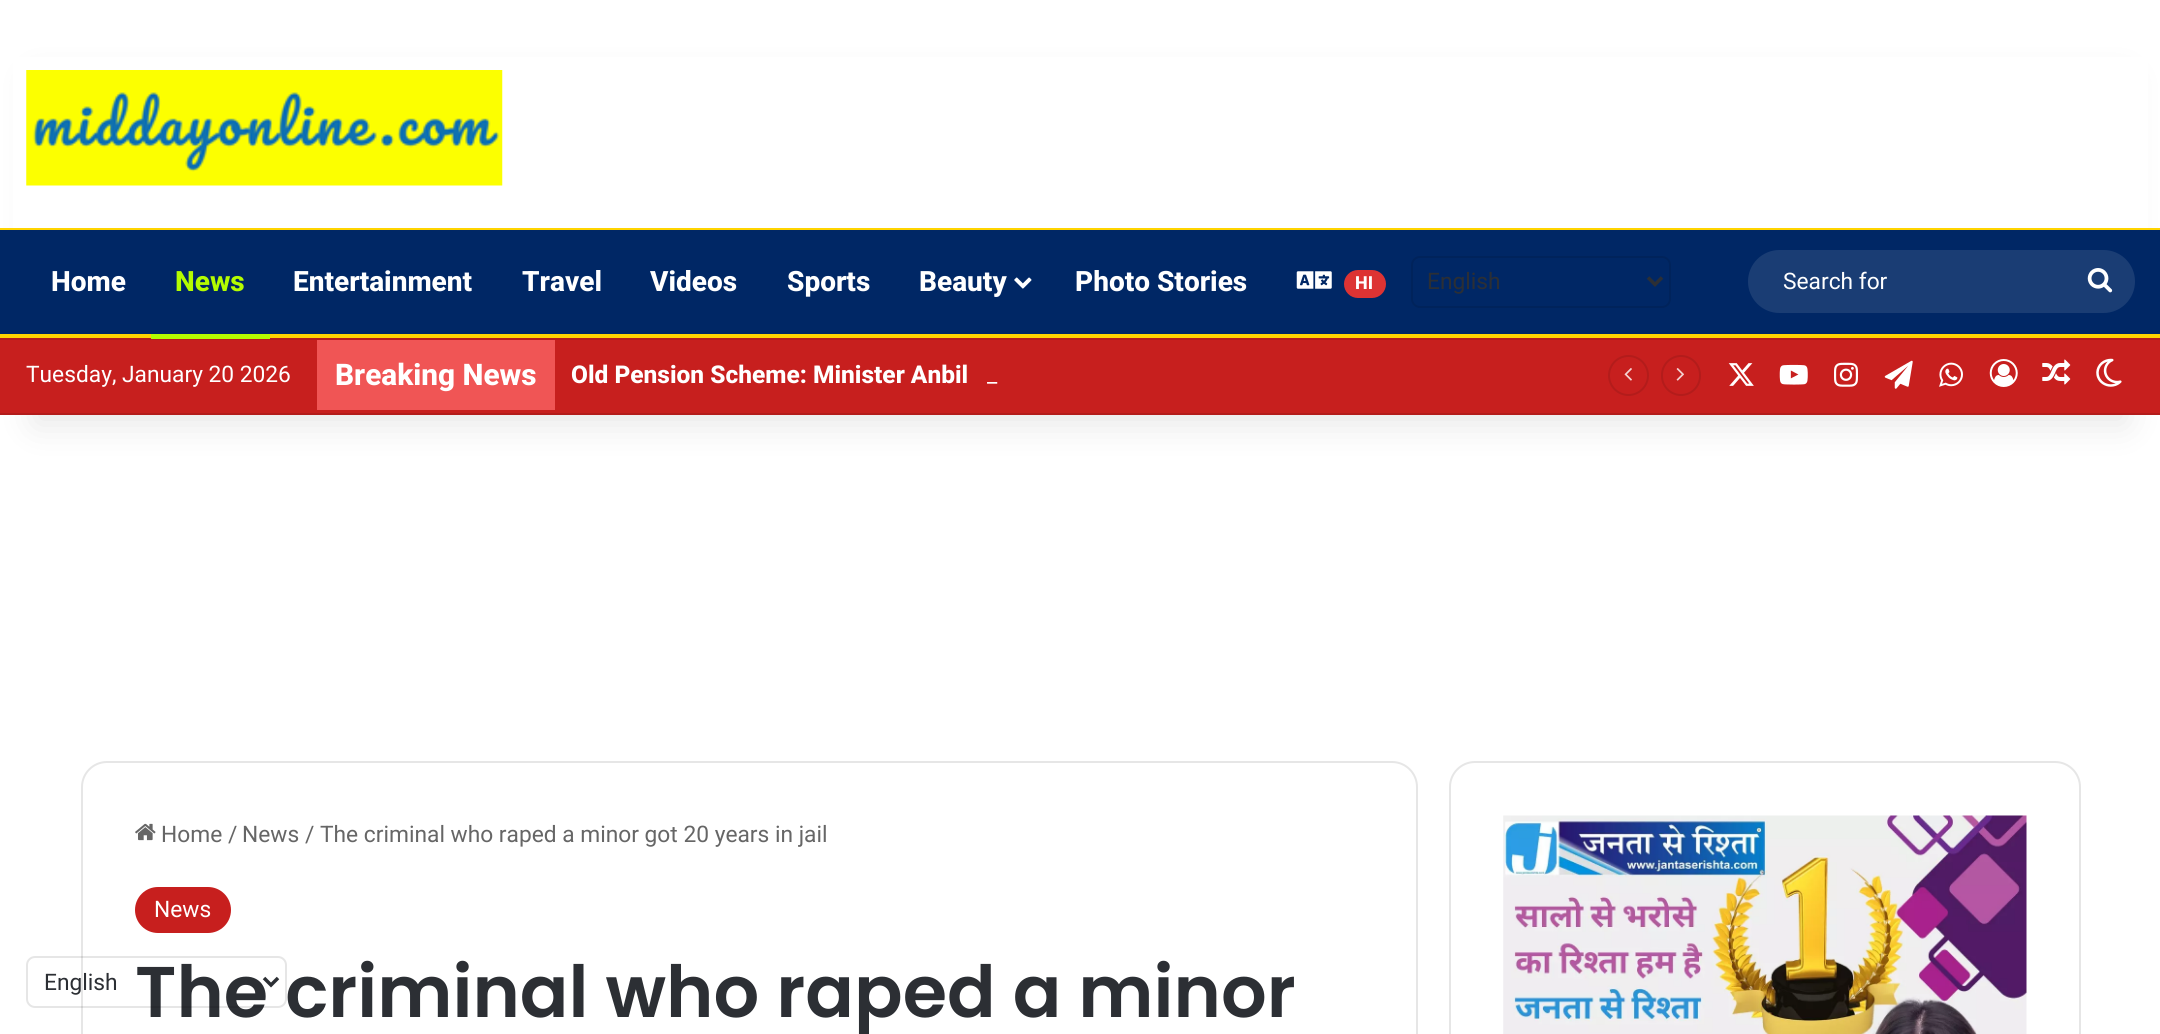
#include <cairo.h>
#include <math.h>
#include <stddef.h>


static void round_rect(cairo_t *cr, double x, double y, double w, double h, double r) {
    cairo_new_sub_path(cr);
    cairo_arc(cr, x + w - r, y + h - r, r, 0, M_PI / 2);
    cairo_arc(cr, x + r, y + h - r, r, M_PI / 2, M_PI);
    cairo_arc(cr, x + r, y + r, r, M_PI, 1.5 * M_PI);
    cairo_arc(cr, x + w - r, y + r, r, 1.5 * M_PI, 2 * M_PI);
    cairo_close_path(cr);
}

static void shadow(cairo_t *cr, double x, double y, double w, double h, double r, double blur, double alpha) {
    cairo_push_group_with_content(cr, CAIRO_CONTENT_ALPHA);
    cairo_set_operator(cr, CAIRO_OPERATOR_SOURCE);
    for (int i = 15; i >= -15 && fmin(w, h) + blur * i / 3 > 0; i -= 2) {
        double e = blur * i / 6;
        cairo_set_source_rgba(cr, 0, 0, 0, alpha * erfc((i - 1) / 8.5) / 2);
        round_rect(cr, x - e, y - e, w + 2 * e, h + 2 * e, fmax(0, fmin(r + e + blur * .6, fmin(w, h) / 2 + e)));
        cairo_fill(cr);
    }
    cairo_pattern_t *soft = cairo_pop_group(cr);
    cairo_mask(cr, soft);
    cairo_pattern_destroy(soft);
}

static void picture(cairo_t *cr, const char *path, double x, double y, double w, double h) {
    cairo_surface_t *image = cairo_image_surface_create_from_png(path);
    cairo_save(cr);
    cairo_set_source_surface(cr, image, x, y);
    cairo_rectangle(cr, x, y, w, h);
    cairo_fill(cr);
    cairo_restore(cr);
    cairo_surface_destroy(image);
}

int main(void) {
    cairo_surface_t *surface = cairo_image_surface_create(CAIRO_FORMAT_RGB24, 2160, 1034);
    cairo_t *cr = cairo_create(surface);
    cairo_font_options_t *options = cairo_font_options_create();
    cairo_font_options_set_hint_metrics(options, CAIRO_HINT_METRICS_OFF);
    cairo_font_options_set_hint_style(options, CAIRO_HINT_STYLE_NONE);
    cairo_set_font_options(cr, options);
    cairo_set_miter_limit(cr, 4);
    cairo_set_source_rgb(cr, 1, 1, 1);
    cairo_paint(cr);
    cairo_set_source_rgb(cr, 0, 0, 0);
    shadow(cr, 35, 79, 2091, 345, 0, 17.5, 0.1);
    cairo_set_source_rgb(cr, 1, 1, 1);
    cairo_rectangle(cr, 13, 57, 2135, 171);
    cairo_fill(cr);
    picture(cr, "img1.png", 26, 70, 477, 116);
    cairo_set_source_rgb(cr, 0, 0.153, 0.396);
    cairo_rectangle(cr, 0, 230, 2160, 104);
    cairo_fill(cr);
    cairo_set_source_rgb(cr, 1, 0.831, 0);
    cairo_rectangle(cr, 0, 228, 2160, 2);
    cairo_fill(cr);
    cairo_rectangle(cr, 0, 334, 2160, 4);
    cairo_fill(cr);
    cairo_select_font_face(cr, "Roboto ExtraBold", CAIRO_FONT_SLANT_NORMAL, CAIRO_FONT_WEIGHT_NORMAL);
    cairo_set_font_size(cr, 28);
    cairo_set_source_rgb(cr, 1, 1, 1);
    cairo_move_to(cr, 51, 291);
    cairo_show_text(cr, "Home");
    cairo_set_source_rgb(cr, 0.702, 0.11, 0.106);
    cairo_rectangle(cr, 0, 338, 2160, 2);
    cairo_fill(cr);
    cairo_set_source_rgb(cr, 0.706, 0.988, 0);
    cairo_rectangle(cr, 151, 334, 119, 5);
    cairo_fill(cr);
    cairo_move_to(cr, 175, 291);
    cairo_show_text(cr, "News");
    cairo_set_source_rgb(cr, 1, 1, 1);
    cairo_move_to(cr, 293, 291);
    cairo_show_text(cr, "Entertainment");
    cairo_move_to(cr, 522, 291);
    cairo_show_text(cr, "Travel");
    cairo_move_to(cr, 650, 291);
    cairo_show_text(cr, "Videos");
    cairo_move_to(cr, 787, 291);
    cairo_show_text(cr, "Sports");
    cairo_move_to(cr, 919, 291);
    cairo_show_text(cr, "Beauty");
    picture(cr, "img2.png", 1014, 277, 18, 12);
    cairo_move_to(cr, 1075, 291);
    cairo_show_text(cr, "Photo Stories");
    picture(cr, "img3.png", 1296, 271, 36, 18);
    cairo_set_source_rgb(cr, 0.867, 0.2, 0.2);
    round_rect(cr, 1344, 270, 42, 28, 14);
    cairo_fill(cr);
    cairo_set_font_size(cr, 18);
    cairo_set_source_rgb(cr, 1, 1, 1);
    cairo_move_to(cr, 1355, 289);
    cairo_show_text(cr, "HI");
    round_rect(cr, 1412, 257, 258, 50, 8);
    cairo_set_source_rgb(cr, 0, 0.137, 0.357);
    cairo_stroke(cr);
    cairo_new_path(cr);
    cairo_move_to(cr, 1648, 277.5);
    cairo_line_to(cr, 1655, 284.5);
    cairo_line_to(cr, 1662, 277.5);
    cairo_set_source_rgb(cr, 0.173, 0.184, 0.204);
    cairo_set_line_width(cr, 3.5);
    cairo_stroke(cr);
    cairo_select_font_face(cr, "Roboto", CAIRO_FONT_SLANT_NORMAL, CAIRO_FONT_WEIGHT_NORMAL);
    cairo_set_font_size(cr, 22.75);
    cairo_move_to(cr, 1427, 289);
    cairo_show_text(cr, "English");
    cairo_set_source_rgb(cr, 0.102, 0.239, 0.455);
    round_rect(cr, 1748, 250, 387, 63, 31.5);
    cairo_fill(cr);
    cairo_set_source_rgb(cr, 1, 1, 1);
    cairo_move_to(cr, 1783, 289);
    cairo_show_text(cr, "Search for");
    picture(cr, "img4.png", 2087, 268, 26, 25);
    cairo_set_source_rgb(cr, 0.78, 0.122, 0.118);
    cairo_rectangle(cr, 0, 340, 2160, 73);
    cairo_fill(cr);
    cairo_set_source_rgb(cr, 0.702, 0.11, 0.106);
    cairo_rectangle(cr, 0, 413, 2160, 2);
    cairo_fill(cr);
    cairo_set_source_rgb(cr, 1, 1, 1);
    cairo_move_to(cr, 26, 382);
    cairo_show_text(cr, "Tuesday, January 20 2026");
    cairo_set_source_rgb(cr, 0.941, 0.333, 0.333);
    cairo_rectangle(cr, 317, 340, 238, 70);
    cairo_fill(cr);
    cairo_select_font_face(cr, "Roboto ExtraBold", CAIRO_FONT_SLANT_NORMAL, CAIRO_FONT_WEIGHT_NORMAL);
    cairo_set_font_size(cr, 29.75);
    cairo_set_source_rgb(cr, 1, 1, 1);
    cairo_move_to(cr, 335, 385);
    cairo_show_text(cr, "Breaking News");
    cairo_set_font_size(cr, 24.5);
    cairo_move_to(cr, 571, 383);
    cairo_show_text(cr, "Old Pension Scheme: Minister Anbil");
    cairo_select_font_face(cr, "Roboto", CAIRO_FONT_SLANT_NORMAL, CAIRO_FONT_WEIGHT_NORMAL);
    cairo_set_font_size(cr, 22.75);
    cairo_move_to(cr, 987, 382);
    cairo_show_text(cr, "_");
    cairo_new_path(cr);
    cairo_arc(cr, 1628.5, 375.5, 19.5, 0, 2 * M_PI);
    cairo_set_source_rgb(cr, 0.702, 0.11, 0.106);
    cairo_set_line_width(cr, 2);
    cairo_stroke(cr);
    picture(cr, "img5.png", 1624, 368, 8, 13);
    round_rect(cr, 1662, 356, 38, 39, 19);
    cairo_stroke(cr);
    picture(cr, "img6.png", 1676, 368, 8, 13);
    picture(cr, "img7.png", 1728, 363, 26, 23);
    picture(cr, "img8.png", 1779, 364, 29, 21);
    picture(cr, "img9.png", 1834, 362, 24, 25);
    picture(cr, "img10.png", 1884, 360, 29, 29);
    picture(cr, "img11.png", 1939, 362, 24, 25);
    picture(cr, "img12.png", 1989, 359, 29, 28);
    picture(cr, "img13.png", 2042, 359, 29, 26);
    picture(cr, "img14.png", 2096, 358, 26, 29);
    round_rect(cr, 82, 762, 1335, 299, 25);
    cairo_set_source_rgb(cr, 0.902, 0.902, 0.902);
    cairo_stroke(cr);
    picture(cr, "img15.png", 135, 823, 21, 18);
    cairo_set_source_rgb(cr, 0.4, 0.4, 0.4);
    cairo_move_to(cr, 161, 842);
    cairo_show_text(cr, "Home");
    cairo_move_to(cr, 228, 842);
    cairo_show_text(cr, "/");
    cairo_move_to(cr, 242, 842);
    cairo_show_text(cr, "News");
    cairo_move_to(cr, 305, 842);
    cairo_show_text(cr, "/");
    cairo_move_to(cr, 320, 842);
    cairo_show_text(cr, "The criminal who raped a minor got 20 years in jail");
    cairo_set_source_rgb(cr, 0.78, 0.122, 0.118);
    round_rect(cr, 135, 887, 96, 46, 23);
    cairo_fill(cr);
    cairo_set_source_rgb(cr, 1, 1, 1);
    cairo_move_to(cr, 154, 917);
    cairo_show_text(cr, "News");
    cairo_select_font_face(cr, "Poppins SemiBold", CAIRO_FONT_SLANT_NORMAL, CAIRO_FONT_WEIGHT_NORMAL);
    cairo_set_font_size(cr, 71.75);
    cairo_set_source_rgb(cr, 0.173, 0.184, 0.204);
    cairo_move_to(cr, 135, 1017);
    cairo_show_text(cr, "The criminal who raped a minor");
    round_rect(cr, 1450, 762, 630, 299, 25);
    cairo_set_source_rgb(cr, 0.902, 0.902, 0.902);
    cairo_stroke(cr);
    picture(cr, "img16.png", 1503, 815, 524, 219);
    round_rect(cr, 27, 957, 259, 50, 8);
    cairo_set_source_rgba(cr, 0, 0, 0, 0.1);
    cairo_stroke(cr);
    cairo_new_path(cr);
    cairo_move_to(cr, 264, 978);
    cairo_line_to(cr, 271, 985);
    cairo_line_to(cr, 278, 978);
    cairo_set_source_rgb(cr, 0.173, 0.184, 0.204);
    cairo_set_line_width(cr, 3.5);
    cairo_stroke(cr);
    cairo_select_font_face(cr, "Roboto", CAIRO_FONT_SLANT_NORMAL, CAIRO_FONT_WEIGHT_NORMAL);
    cairo_set_font_size(cr, 22.75);
    cairo_move_to(cr, 44, 990);
    cairo_show_text(cr, "English");
    cairo_surface_write_to_png(surface, "page.png");
    cairo_font_options_destroy(options);
    cairo_destroy(cr);
    cairo_surface_destroy(surface);
    return 0;
}
